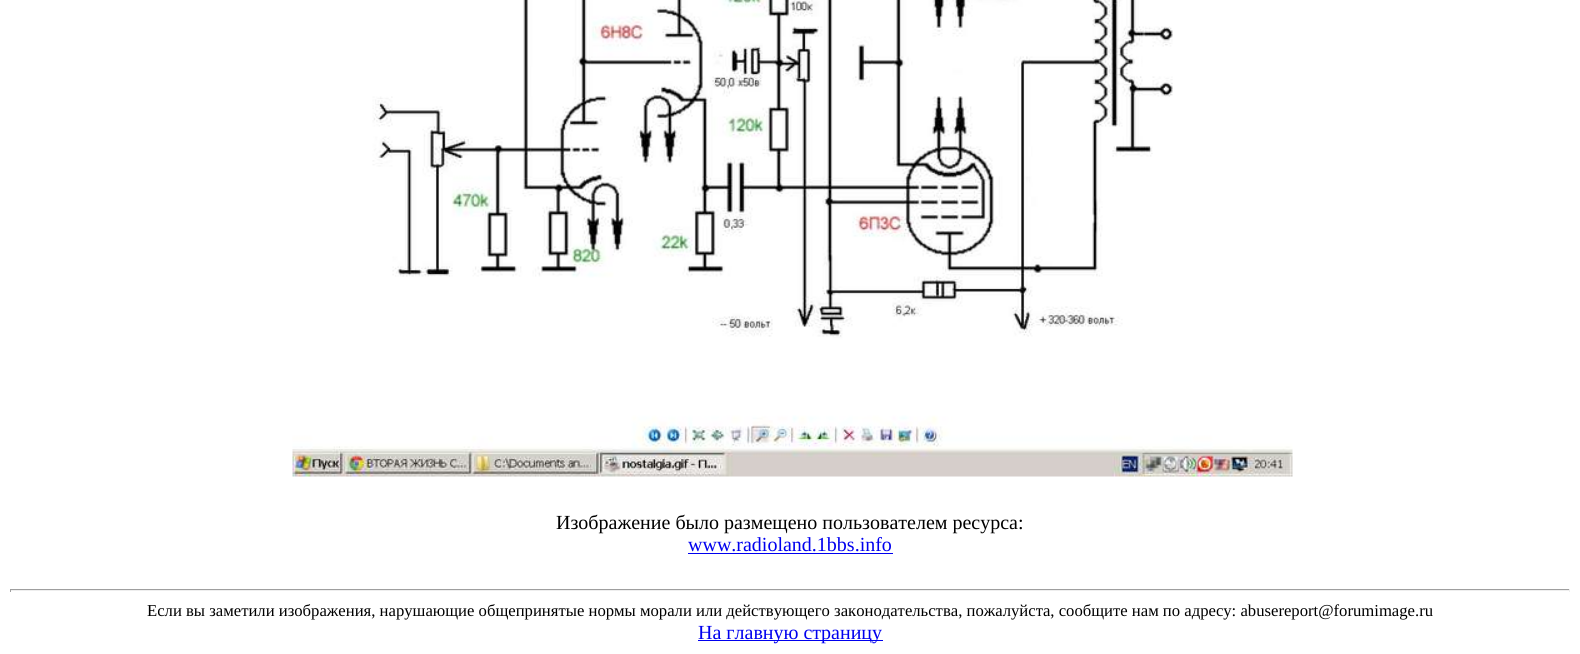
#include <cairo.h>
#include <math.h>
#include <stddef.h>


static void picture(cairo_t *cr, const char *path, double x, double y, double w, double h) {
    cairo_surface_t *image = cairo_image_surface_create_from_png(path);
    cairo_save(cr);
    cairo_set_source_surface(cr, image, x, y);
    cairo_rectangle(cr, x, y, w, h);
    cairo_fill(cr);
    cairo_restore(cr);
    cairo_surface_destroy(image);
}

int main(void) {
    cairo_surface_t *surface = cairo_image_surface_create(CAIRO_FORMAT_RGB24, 1580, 654);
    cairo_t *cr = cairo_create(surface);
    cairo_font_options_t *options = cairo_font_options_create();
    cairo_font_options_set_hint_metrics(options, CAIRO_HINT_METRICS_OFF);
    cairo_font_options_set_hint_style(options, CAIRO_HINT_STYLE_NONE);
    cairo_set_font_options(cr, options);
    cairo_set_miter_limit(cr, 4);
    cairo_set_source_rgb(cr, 1, 1, 1);
    cairo_paint(cr);
    picture(cr, "img1.png", 292, 0, 1001, 477);
    cairo_select_font_face(cr, "Liberation Serif", CAIRO_FONT_SLANT_NORMAL, CAIRO_FONT_WEIGHT_NORMAL);
    cairo_set_font_size(cr, 20);
    cairo_set_source_rgb(cr, 0, 0, 0);
    cairo_move_to(cr, 556, 529);
    cairo_show_text(cr, "Изображение было размещено пользователем ресурса:");
    cairo_set_source_rgb(cr, 0, 0, 0.933);
    cairo_move_to(cr, 688, 551);
    cairo_show_text(cr, "www.radioland.1bbs.info");
    cairo_rectangle(cr, 688, 553, 205, 1);
    cairo_fill(cr);
    cairo_set_source_rgb(cr, 0.624, 0.624, 0.624);
    cairo_rectangle(cr, 10, 589, 1560, 1);
    cairo_fill(cr);
    cairo_set_source_rgb(cr, 0.933, 0.933, 0.933);
    cairo_rectangle(cr, 1569, 589, 1, 3);
    cairo_fill(cr);
    cairo_rectangle(cr, 10, 590, 1560, 1);
    cairo_fill(cr);
    cairo_set_source_rgb(cr, 0.624, 0.624, 0.624);
    cairo_rectangle(cr, 10, 589, 1, 3);
    cairo_fill(cr);
    cairo_set_font_size(cr, 16.67);
    cairo_set_source_rgb(cr, 0, 0, 0);
    cairo_move_to(cr, 147, 616);
    cairo_show_text(cr, "Если вы заметили изображения, нарушающие общепринятые нормы морали или действующего законодательства, пожалуйста, сообщите нам по адресу: abusereport@forumimage.ru");
    cairo_set_source_rgb(cr, 0, 0, 0.933);
    cairo_rectangle(cr, 698, 640, 185, 1);
    cairo_fill(cr);
    cairo_set_font_size(cr, 20);
    cairo_move_to(cr, 698, 639);
    cairo_show_text(cr, "На главную страницу");
    cairo_surface_write_to_png(surface, "page.png");
    cairo_font_options_destroy(options);
    cairo_destroy(cr);
    cairo_surface_destroy(surface);
    return 0;
}
